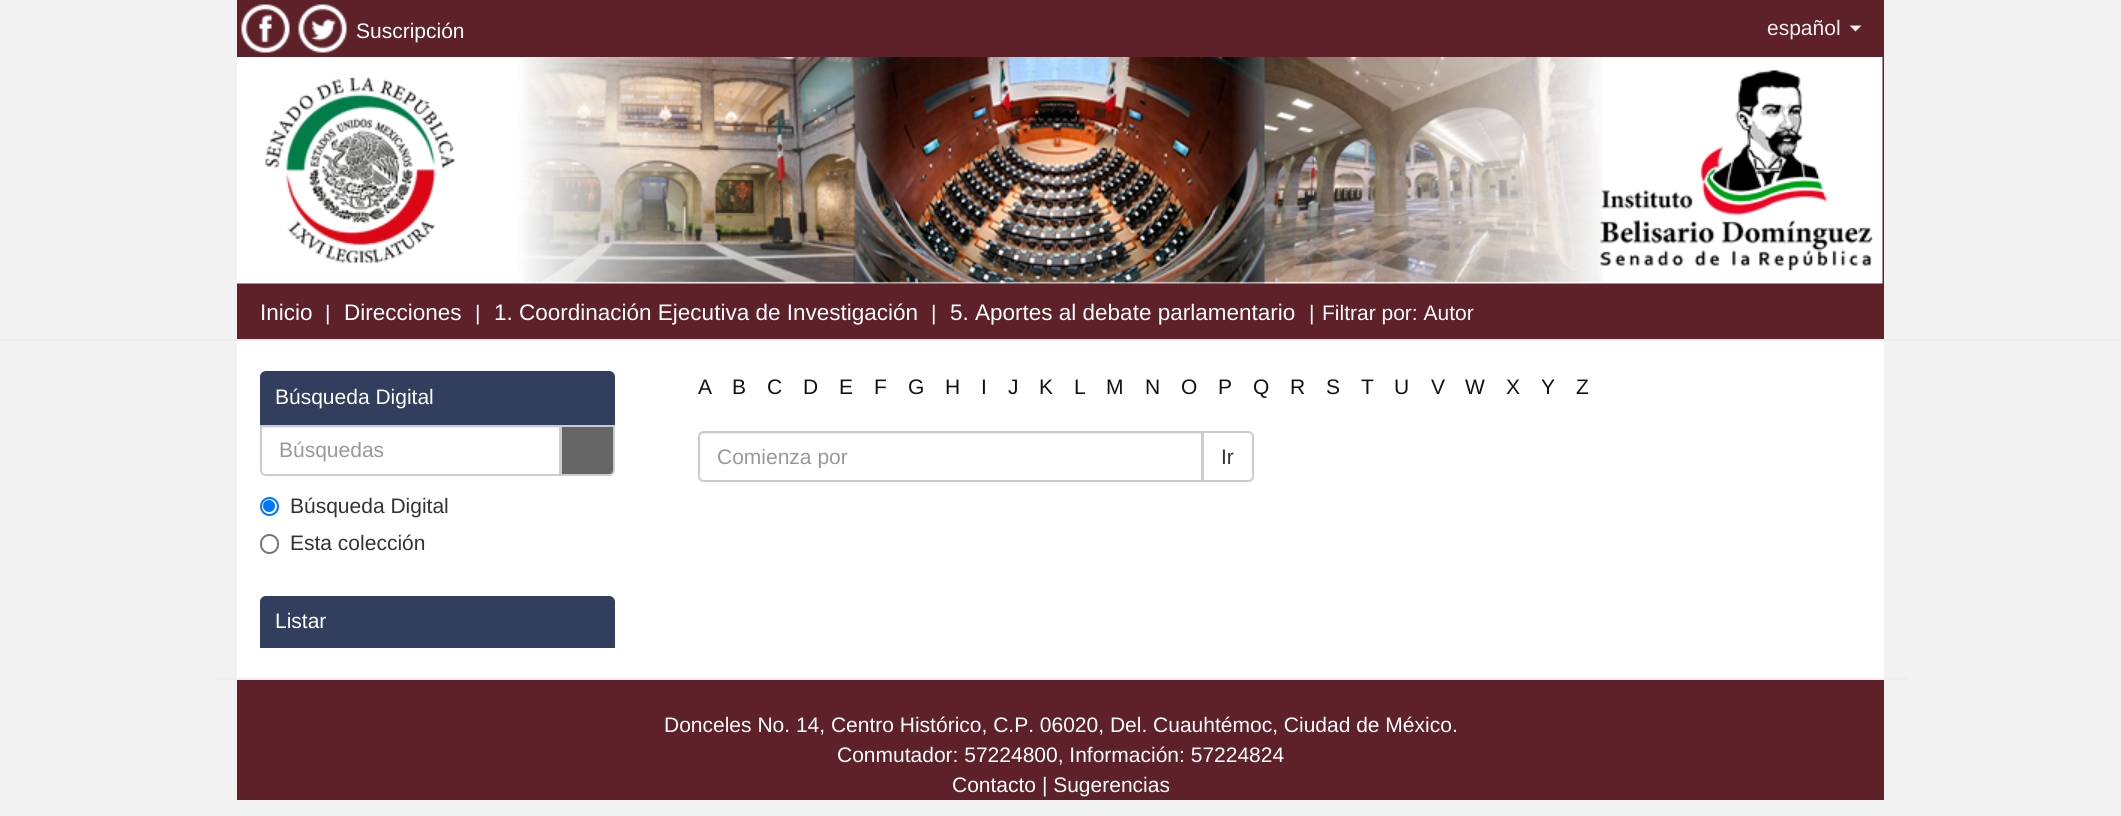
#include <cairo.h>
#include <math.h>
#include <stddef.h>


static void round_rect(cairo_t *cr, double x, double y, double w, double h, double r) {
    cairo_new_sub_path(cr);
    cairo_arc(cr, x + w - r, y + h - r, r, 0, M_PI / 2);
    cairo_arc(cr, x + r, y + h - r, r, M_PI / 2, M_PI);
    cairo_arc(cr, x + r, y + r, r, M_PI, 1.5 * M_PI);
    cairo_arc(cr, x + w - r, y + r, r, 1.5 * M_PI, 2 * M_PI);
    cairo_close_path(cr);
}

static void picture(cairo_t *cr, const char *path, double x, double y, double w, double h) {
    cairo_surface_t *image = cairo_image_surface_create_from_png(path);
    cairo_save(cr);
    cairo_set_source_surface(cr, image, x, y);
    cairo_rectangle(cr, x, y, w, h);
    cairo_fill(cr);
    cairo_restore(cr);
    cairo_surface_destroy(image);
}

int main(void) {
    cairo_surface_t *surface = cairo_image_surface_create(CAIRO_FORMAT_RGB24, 2121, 816);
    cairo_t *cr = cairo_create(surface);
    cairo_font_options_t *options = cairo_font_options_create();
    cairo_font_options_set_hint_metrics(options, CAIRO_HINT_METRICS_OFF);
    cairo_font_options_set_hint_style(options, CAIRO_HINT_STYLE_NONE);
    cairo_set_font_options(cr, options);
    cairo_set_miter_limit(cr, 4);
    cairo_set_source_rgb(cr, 0.949, 0.949, 0.949);
    cairo_paint(cr);
    cairo_set_source_rgb(cr, 0.369, 0.129, 0.161);
    cairo_rectangle(cr, 237, 0, 1647, 339);
    cairo_fill(cr);
    picture(cr, "img1.png", 237, 57, 1646, 227);
    picture(cr, "img2.png", 241, 4, 49, 49);
    picture(cr, "img3.png", 298, 4, 49, 49);
    cairo_select_font_face(cr, "Liberation Sans", CAIRO_FONT_SLANT_NORMAL, CAIRO_FONT_WEIGHT_NORMAL);
    cairo_set_font_size(cr, 21);
    cairo_set_source_rgb(cr, 1, 1, 1);
    cairo_move_to(cr, 356, 38);
    cairo_show_text(cr, "Suscripción");
    cairo_set_source_rgb(cr, 0.933, 0.933, 0.933);
    cairo_move_to(cr, 1767, 35);
    cairo_show_text(cr, "español");
    cairo_new_path(cr);
    cairo_move_to(cr, 1849.5, 25.5);
    cairo_line_to(cr, 1861.5, 25.5);
    cairo_line_to(cr, 1855.5, 31.5);
    cairo_close_path(cr);
    cairo_fill(cr);
    cairo_set_source_rgb(cr, 0.918, 0.918, 0.918);
    cairo_rectangle(cr, 0, 339, 2121, 2);
    cairo_fill(cr);
    cairo_set_font_size(cr, 22.5);
    cairo_set_source_rgb(cr, 1, 1, 1);
    cairo_move_to(cr, 260, 320);
    cairo_show_text(cr, "Inicio");
    cairo_set_font_size(cr, 21);
    cairo_move_to(cr, 325, 320);
    cairo_show_text(cr, "|");
    cairo_set_font_size(cr, 22.5);
    cairo_move_to(cr, 344, 320);
    cairo_show_text(cr, "Direcciones");
    cairo_set_font_size(cr, 21);
    cairo_move_to(cr, 475, 320);
    cairo_show_text(cr, "|");
    cairo_set_font_size(cr, 22.5);
    cairo_move_to(cr, 494, 320);
    cairo_show_text(cr, "1. Coordinación Ejecutiva de Investigación");
    cairo_set_font_size(cr, 21);
    cairo_move_to(cr, 931, 320);
    cairo_show_text(cr, "|");
    cairo_set_font_size(cr, 22.5);
    cairo_move_to(cr, 950, 320);
    cairo_show_text(cr, "5. Aportes al debate parlamentario");
    cairo_set_font_size(cr, 21);
    cairo_move_to(cr, 1309, 320);
    cairo_show_text(cr, "|");
    cairo_move_to(cr, 1322, 320);
    cairo_show_text(cr, "Filtrar por: Autor");
    cairo_rectangle(cr, 237, 341, 1647, 337);
    cairo_fill(cr);
    cairo_set_source_rgb(cr, 0.192, 0.243, 0.365);
    cairo_new_path(cr);
    cairo_move_to(cr, 266, 371);
    cairo_line_to(cr, 609, 371);
    cairo_curve_to(cr, 612.5, 371, 615, 373.5, 615, 377);
    cairo_line_to(cr, 615, 425);
    cairo_line_to(cr, 260, 425);
    cairo_line_to(cr, 260, 377);
    cairo_curve_to(cr, 260, 373.5, 262.5, 371, 266, 371);
    cairo_close_path(cr);
    cairo_fill(cr);
    cairo_set_source_rgb(cr, 1, 1, 1);
    cairo_move_to(cr, 275, 404);
    cairo_show_text(cr, "Búsqueda Digital");
    cairo_set_source_rgb(cr, 0.4, 0.4, 0.4);
    cairo_new_path(cr);
    cairo_move_to(cr, 561, 426);
    cairo_line_to(cr, 614, 426);
    cairo_line_to(cr, 614, 470);
    cairo_curve_to(cr, 614, 473, 612, 475, 609, 475);
    cairo_line_to(cr, 561, 475);
    cairo_close_path(cr);
    cairo_fill_preserve(cr);
    cairo_set_source_rgb(cr, 0.8, 0.8, 0.8);
    cairo_stroke(cr);
    cairo_set_source_rgb(cr, 1, 1, 1);
    cairo_new_path(cr);
    cairo_move_to(cr, 260, 425);
    cairo_line_to(cr, 561, 425);
    cairo_line_to(cr, 561, 476);
    cairo_line_to(cr, 266, 476);
    cairo_curve_to(cr, 262.5, 476, 260, 473.5, 260, 470);
    cairo_close_path(cr);
    cairo_fill(cr);
    cairo_set_source_rgb(cr, 0.925, 0.925, 0.925);
    cairo_rectangle(cr, 261, 427, 299, 1);
    cairo_fill(cr);
    cairo_new_path(cr);
    cairo_move_to(cr, 261, 426);
    cairo_line_to(cr, 560, 426);
    cairo_line_to(cr, 560, 475);
    cairo_line_to(cr, 266, 475);
    cairo_curve_to(cr, 263, 475, 261, 473, 261, 470);
    cairo_close_path(cr);
    cairo_set_source_rgb(cr, 0.8, 0.8, 0.8);
    cairo_stroke(cr);
    cairo_set_source_rgb(cr, 0.6, 0.6, 0.6);
    cairo_move_to(cr, 279, 457);
    cairo_show_text(cr, "Búsquedas");
    cairo_new_path(cr);
    cairo_arc(cr, 269.5, 506.5, 8.5, 0, 2 * M_PI);
    cairo_set_source_rgb(cr, 0, 0.459, 1);
    cairo_stroke(cr);
    cairo_arc(cr, 269, 506, 6, 0, 2 * M_PI);
    cairo_fill(cr);
    cairo_set_source_rgb(cr, 0.2, 0.2, 0.2);
    cairo_move_to(cr, 290, 513);
    cairo_show_text(cr, "Búsqueda Digital");
    round_rect(cr, 261, 535, 17, 18, 8.5);
    cairo_set_source_rgb(cr, 0.463, 0.463, 0.463);
    cairo_stroke(cr);
    cairo_set_source_rgb(cr, 0.2, 0.2, 0.2);
    cairo_move_to(cr, 290, 550);
    cairo_show_text(cr, "Esta colección");
    cairo_set_source_rgb(cr, 0.192, 0.243, 0.365);
    cairo_new_path(cr);
    cairo_move_to(cr, 266, 596);
    cairo_line_to(cr, 609, 596);
    cairo_curve_to(cr, 612.5, 596, 615, 598.5, 615, 602);
    cairo_line_to(cr, 615, 648);
    cairo_line_to(cr, 260, 648);
    cairo_line_to(cr, 260, 602);
    cairo_curve_to(cr, 260, 598.5, 262.5, 596, 266, 596);
    cairo_close_path(cr);
    cairo_fill(cr);
    cairo_set_source_rgb(cr, 1, 1, 1);
    cairo_move_to(cr, 275, 628);
    cairo_show_text(cr, "Listar");
    cairo_set_source_rgb(cr, 0.067, 0.067, 0.067);
    cairo_move_to(cr, 698, 394);
    cairo_show_text(cr, "A");
    cairo_move_to(cr, 732, 394);
    cairo_show_text(cr, "B");
    cairo_move_to(cr, 767, 394);
    cairo_show_text(cr, "C");
    cairo_move_to(cr, 803, 394);
    cairo_show_text(cr, "D");
    cairo_move_to(cr, 839, 394);
    cairo_show_text(cr, "E");
    cairo_move_to(cr, 874, 394);
    cairo_show_text(cr, "F");
    cairo_move_to(cr, 908, 394);
    cairo_show_text(cr, "G");
    cairo_move_to(cr, 945, 394);
    cairo_show_text(cr, "H");
    cairo_move_to(cr, 981, 394);
    cairo_show_text(cr, "I");
    cairo_move_to(cr, 1008, 394);
    cairo_show_text(cr, "J");
    cairo_move_to(cr, 1039, 394);
    cairo_show_text(cr, "K");
    cairo_move_to(cr, 1074, 394);
    cairo_show_text(cr, "L");
    cairo_move_to(cr, 1106, 394);
    cairo_show_text(cr, "M");
    cairo_move_to(cr, 1145, 394);
    cairo_show_text(cr, "N");
    cairo_move_to(cr, 1181, 394);
    cairo_show_text(cr, "O");
    cairo_move_to(cr, 1218, 394);
    cairo_show_text(cr, "P");
    cairo_move_to(cr, 1253, 394);
    cairo_show_text(cr, "Q");
    cairo_move_to(cr, 1290, 394);
    cairo_show_text(cr, "R");
    cairo_move_to(cr, 1326, 394);
    cairo_show_text(cr, "S");
    cairo_move_to(cr, 1361, 394);
    cairo_show_text(cr, "T");
    cairo_move_to(cr, 1394, 394);
    cairo_show_text(cr, "U");
    cairo_move_to(cr, 1431, 394);
    cairo_show_text(cr, "V");
    cairo_move_to(cr, 1465, 394);
    cairo_show_text(cr, "W");
    cairo_move_to(cr, 1506, 394);
    cairo_show_text(cr, "X");
    cairo_move_to(cr, 1541, 394);
    cairo_show_text(cr, "Y");
    cairo_move_to(cr, 1576, 394);
    cairo_show_text(cr, "Z");
    cairo_new_path(cr);
    cairo_move_to(cr, 1203, 432);
    cairo_line_to(cr, 1248, 432);
    cairo_curve_to(cr, 1251, 432, 1253, 434, 1253, 437);
    cairo_line_to(cr, 1253, 476);
    cairo_curve_to(cr, 1253, 479, 1251, 481, 1248, 481);
    cairo_line_to(cr, 1203, 481);
    cairo_close_path(cr);
    cairo_set_source_rgb(cr, 0.8, 0.8, 0.8);
    cairo_stroke(cr);
    cairo_set_source_rgb(cr, 1, 1, 1);
    cairo_new_path(cr);
    cairo_move_to(cr, 704, 431);
    cairo_line_to(cr, 1203, 431);
    cairo_line_to(cr, 1203, 482);
    cairo_line_to(cr, 704, 482);
    cairo_curve_to(cr, 700.5, 482, 698, 479.5, 698, 476);
    cairo_line_to(cr, 698, 437);
    cairo_curve_to(cr, 698, 433.5, 700.5, 431, 704, 431);
    cairo_close_path(cr);
    cairo_fill(cr);
    cairo_set_source_rgb(cr, 0.925, 0.925, 0.925);
    cairo_new_path(cr);
    cairo_move_to(cr, 704, 434);
    cairo_line_to(cr, 1202, 434);
    cairo_line_to(cr, 1202, 432);
    cairo_line_to(cr, 704, 432);
    cairo_curve_to(cr, 701, 432, 699, 434, 699, 437);
    cairo_line_to(cr, 699, 438);
    cairo_curve_to(cr, 699, 436, 701, 434, 704, 434);
    cairo_close_path(cr);
    cairo_fill(cr);
    cairo_new_path(cr);
    cairo_move_to(cr, 704, 432);
    cairo_line_to(cr, 1202, 432);
    cairo_line_to(cr, 1202, 481);
    cairo_line_to(cr, 704, 481);
    cairo_curve_to(cr, 701, 481, 699, 479, 699, 476);
    cairo_line_to(cr, 699, 437);
    cairo_curve_to(cr, 699, 434, 701, 432, 704, 432);
    cairo_close_path(cr);
    cairo_set_source_rgb(cr, 0.8, 0.8, 0.8);
    cairo_stroke(cr);
    cairo_save(cr);
    cairo_rectangle(cr, 717, 444, 467, 24);
    cairo_clip(cr);
    cairo_set_source_rgb(cr, 0.6, 0.6, 0.6);
    cairo_move_to(cr, 717, 464);
    cairo_show_text(cr, "Comienza por");
    cairo_restore(cr);
    cairo_set_source_rgb(cr, 0.2, 0.2, 0.2);
    cairo_move_to(cr, 1221, 464);
    cairo_show_text(cr, "Ir");
    cairo_set_source_rgb(cr, 0.369, 0.129, 0.161);
    cairo_rectangle(cr, 237, 680, 1647, 120);
    cairo_fill(cr);
    cairo_set_source_rgb(cr, 0.933, 0.933, 0.933);
    cairo_rectangle(cr, 215, 678, 1692, 2);
    cairo_fill(cr);
    cairo_set_source_rgb(cr, 1, 1, 1);
    cairo_move_to(cr, 664, 732);
    cairo_show_text(cr, "Donceles No. 14, Centro Histórico, C.P. 06020, Del. Cuauhtémoc, Ciudad de México.");
    cairo_move_to(cr, 837, 762);
    cairo_show_text(cr, "Conmutador: 57224800, Información: 57224824");
    cairo_move_to(cr, 952, 792);
    cairo_show_text(cr, "Contacto | Sugerencias");
    cairo_surface_write_to_png(surface, "page.png");
    cairo_font_options_destroy(options);
    cairo_destroy(cr);
    cairo_surface_destroy(surface);
    return 0;
}
